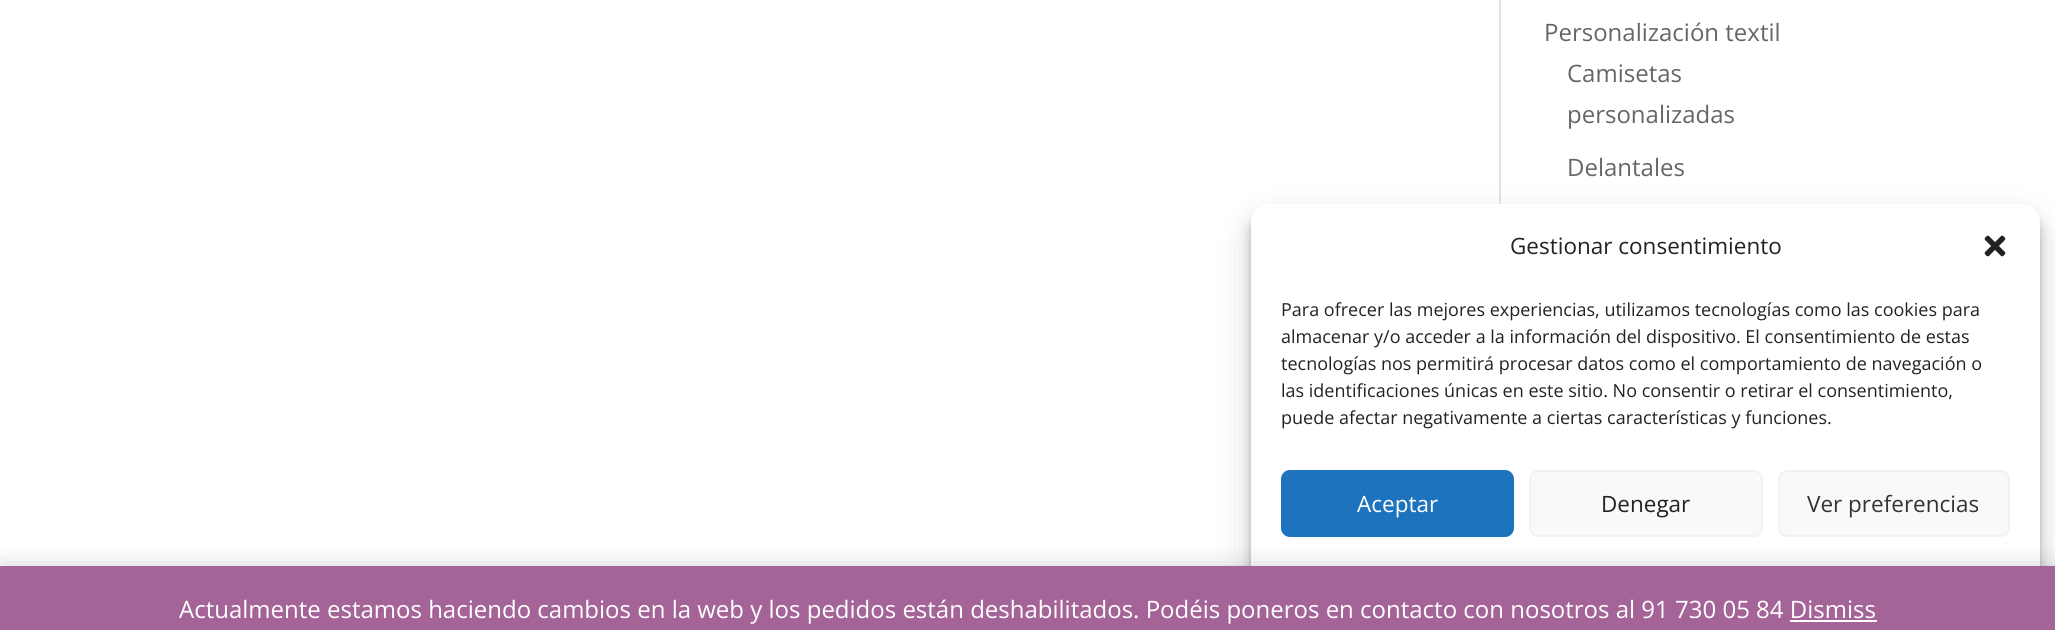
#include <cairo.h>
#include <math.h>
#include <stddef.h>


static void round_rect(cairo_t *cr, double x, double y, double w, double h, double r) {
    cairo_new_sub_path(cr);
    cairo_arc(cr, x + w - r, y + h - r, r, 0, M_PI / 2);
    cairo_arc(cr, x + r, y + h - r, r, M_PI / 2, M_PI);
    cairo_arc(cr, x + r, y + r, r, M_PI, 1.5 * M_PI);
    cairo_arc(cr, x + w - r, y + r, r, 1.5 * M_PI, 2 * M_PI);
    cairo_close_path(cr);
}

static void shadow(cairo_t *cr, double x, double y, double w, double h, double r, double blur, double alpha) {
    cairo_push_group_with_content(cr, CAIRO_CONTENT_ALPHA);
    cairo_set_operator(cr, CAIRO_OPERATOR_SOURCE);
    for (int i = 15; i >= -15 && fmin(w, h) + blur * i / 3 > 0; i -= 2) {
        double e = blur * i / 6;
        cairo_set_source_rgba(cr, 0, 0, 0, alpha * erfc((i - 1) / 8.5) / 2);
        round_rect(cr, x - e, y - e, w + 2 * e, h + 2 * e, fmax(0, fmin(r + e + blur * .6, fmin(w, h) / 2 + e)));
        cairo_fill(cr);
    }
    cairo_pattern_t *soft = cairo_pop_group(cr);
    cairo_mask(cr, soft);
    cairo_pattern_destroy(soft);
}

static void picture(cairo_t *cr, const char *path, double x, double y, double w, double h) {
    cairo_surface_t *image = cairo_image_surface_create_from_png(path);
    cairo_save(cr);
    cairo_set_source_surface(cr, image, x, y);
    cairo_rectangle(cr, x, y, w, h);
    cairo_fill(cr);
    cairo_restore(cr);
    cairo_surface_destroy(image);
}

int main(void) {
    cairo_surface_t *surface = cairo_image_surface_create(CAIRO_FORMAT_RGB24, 2055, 630);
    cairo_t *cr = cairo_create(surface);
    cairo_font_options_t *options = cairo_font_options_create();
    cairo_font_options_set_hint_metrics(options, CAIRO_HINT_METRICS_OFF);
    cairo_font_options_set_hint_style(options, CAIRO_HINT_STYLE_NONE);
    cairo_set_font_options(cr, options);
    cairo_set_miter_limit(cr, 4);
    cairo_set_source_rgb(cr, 1, 1, 1);
    cairo_paint(cr);
    cairo_set_source_rgb(cr, 0.886, 0.886, 0.886);
    cairo_rectangle(cr, 1499, 0, 2, 204);
    cairo_fill(cr);
    cairo_select_font_face(cr, "Open Sans", CAIRO_FONT_SLANT_NORMAL, CAIRO_FONT_WEIGHT_NORMAL);
    cairo_set_font_size(cr, 24);
    cairo_set_source_rgb(cr, 0.4, 0.4, 0.4);
    cairo_move_to(cr, 1544, 41);
    cairo_show_text(cr, "Personalización textil");
    cairo_move_to(cr, 1567, 82);
    cairo_show_text(cr, "Camisetas");
    cairo_move_to(cr, 1567, 123);
    cairo_show_text(cr, "personalizadas");
    cairo_move_to(cr, 1567, 176);
    cairo_show_text(cr, "Delantales");
    cairo_set_source_rgb(cr, 0, 0, 0);
    shadow(cr, 1251, 213, 789, 411, 18, 4.5, 0.23);
    shadow(cr, 1251, 219, 789, 411, 18, 15, 0.19);
    cairo_set_source_rgb(cr, 1, 1, 1);
    round_rect(cr, 1251, 204, 789, 411, 18);
    cairo_fill(cr);
    cairo_set_font_size(cr, 22.5);
    cairo_set_source_rgb(cr, 0.133, 0.133, 0.133);
    cairo_move_to(cr, 1510, 254);
    cairo_show_text(cr, "Gestionar consentimiento");
    picture(cr, "img1.png", 1984, 235, 22, 22);
    cairo_set_font_size(cr, 18);
    cairo_move_to(cr, 1281, 316);
    cairo_show_text(cr, "Para ofrecer las mejores experiencias, utilizamos tecnologías como las cookies para");
    cairo_move_to(cr, 1281, 343);
    cairo_show_text(cr, "almacenar y/o acceder a la información del dispositivo. El consentimiento de estas");
    cairo_move_to(cr, 1281, 370);
    cairo_show_text(cr, "tecnologías nos permitirá procesar datos como el comportamiento de navegación o");
    cairo_move_to(cr, 1281, 397);
    cairo_show_text(cr, "las identificaciones únicas en este sitio. No consentir o retirar el consentimiento,");
    cairo_move_to(cr, 1281, 424);
    cairo_show_text(cr, "puede afectar negativamente a ciertas características y funciones.");
    cairo_set_source_rgb(cr, 0.118, 0.451, 0.745);
    round_rect(cr, 1282, 471, 231, 65, 8);
    cairo_fill_preserve(cr);
    cairo_stroke(cr);
    cairo_set_font_size(cr, 22.5);
    cairo_set_source_rgb(cr, 1, 1, 1);
    cairo_move_to(cr, 1357, 512);
    cairo_show_text(cr, "Aceptar");
    cairo_set_source_rgb(cr, 0.976, 0.976, 0.976);
    round_rect(cr, 1530, 471, 232, 65, 8);
    cairo_fill_preserve(cr);
    cairo_set_source_rgb(cr, 0.949, 0.949, 0.949);
    cairo_stroke(cr);
    cairo_set_source_rgb(cr, 0.133, 0.133, 0.133);
    cairo_move_to(cr, 1601, 512);
    cairo_show_text(cr, "Denegar");
    cairo_set_source_rgb(cr, 0.976, 0.976, 0.976);
    round_rect(cr, 1779, 471, 230, 65, 8);
    cairo_fill_preserve(cr);
    cairo_set_source_rgb(cr, 0.949, 0.949, 0.949);
    cairo_stroke(cr);
    cairo_set_source_rgb(cr, 0.2, 0.2, 0.2);
    cairo_move_to(cr, 1807, 512);
    cairo_show_text(cr, "Ver preferencias");
    cairo_set_source_rgb(cr, 0, 0, 0);
    shadow(cr, 0, 567, 2055, 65, 0, 12, 0.2);
    cairo_set_source_rgb(cr, 0.643, 0.392, 0.592);
    cairo_rectangle(cr, 0, 566, 2055, 64);
    cairo_fill(cr);
    cairo_set_font_size(cr, 24);
    cairo_set_source_rgb(cr, 1, 1, 1);
    cairo_move_to(cr, 179, 618);
    cairo_show_text(cr, "Actualmente estamos haciendo cambios en la web y los pedidos están deshabilitados. Podéis poneros en contacto con nosotros al 91 730 05 84 Dismiss");
    cairo_rectangle(cr, 1790, 620, 87, 2);
    cairo_fill(cr);
    cairo_surface_write_to_png(surface, "page.png");
    cairo_font_options_destroy(options);
    cairo_destroy(cr);
    cairo_surface_destroy(surface);
    return 0;
}
